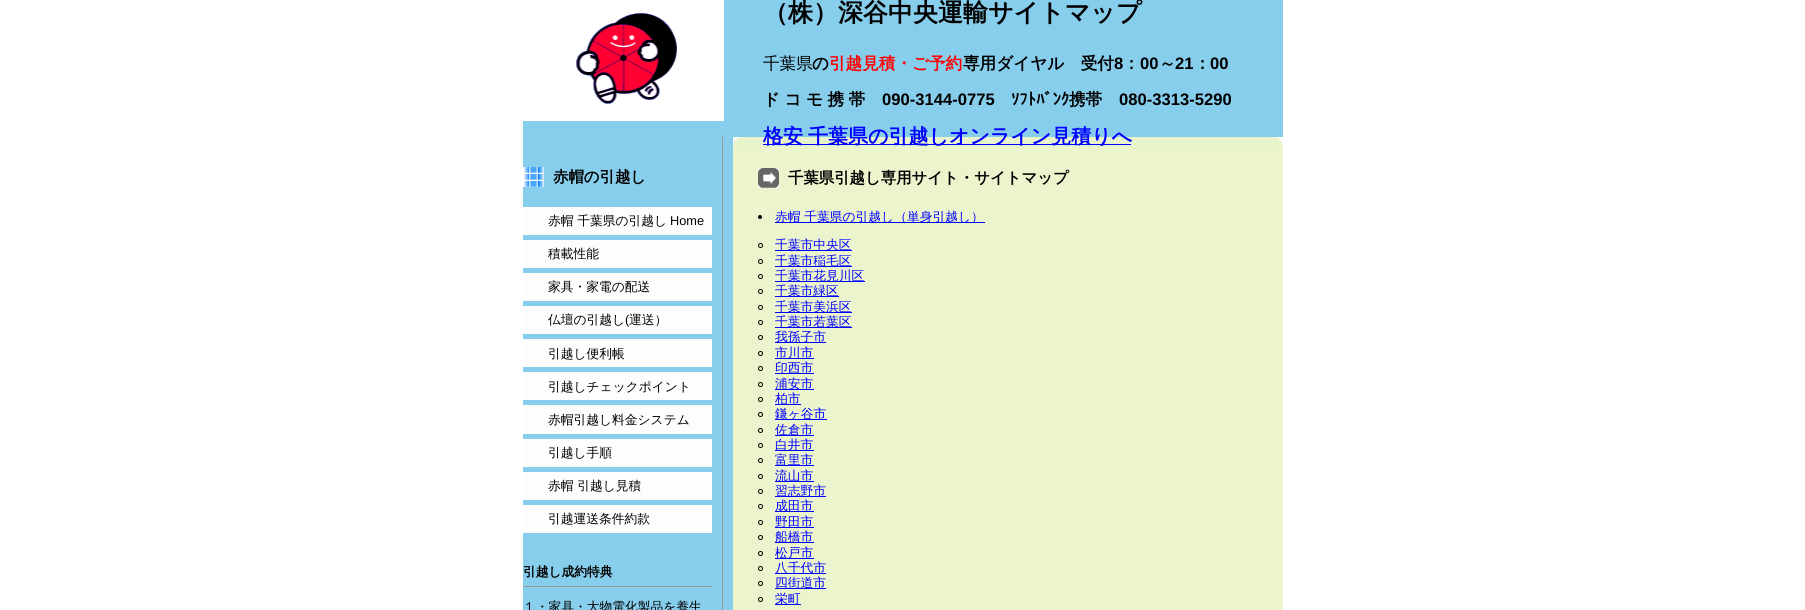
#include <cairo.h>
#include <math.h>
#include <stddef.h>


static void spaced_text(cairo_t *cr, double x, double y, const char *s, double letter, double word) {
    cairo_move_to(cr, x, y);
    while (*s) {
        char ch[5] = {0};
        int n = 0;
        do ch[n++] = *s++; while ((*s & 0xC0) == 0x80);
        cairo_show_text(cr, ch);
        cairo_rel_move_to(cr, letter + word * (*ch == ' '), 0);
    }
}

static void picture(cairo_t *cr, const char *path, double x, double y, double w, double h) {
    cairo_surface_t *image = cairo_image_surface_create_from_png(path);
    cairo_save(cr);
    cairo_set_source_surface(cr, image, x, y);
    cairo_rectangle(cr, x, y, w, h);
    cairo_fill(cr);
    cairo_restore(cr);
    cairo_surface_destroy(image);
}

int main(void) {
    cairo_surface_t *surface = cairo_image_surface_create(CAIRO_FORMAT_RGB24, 1805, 610);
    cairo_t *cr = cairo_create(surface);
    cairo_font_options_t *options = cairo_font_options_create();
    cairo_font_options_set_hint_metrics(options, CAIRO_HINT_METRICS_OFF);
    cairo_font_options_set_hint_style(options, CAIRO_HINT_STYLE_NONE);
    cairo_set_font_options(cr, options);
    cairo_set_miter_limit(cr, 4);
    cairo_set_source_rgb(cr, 1, 1, 1);
    cairo_paint(cr);
    cairo_set_source_rgb(cr, 0.529, 0.808, 0.922);
    cairo_rectangle(cr, 523, 0, 760, 610);
    cairo_fill(cr);
    picture(cr, "img1.png", 523, 0, 201, 121);
    cairo_select_font_face(cr, "WenQuanYi Zen Hei", CAIRO_FONT_SLANT_NORMAL, CAIRO_FONT_WEIGHT_BOLD);
    cairo_set_font_size(cr, 25);
    cairo_set_source_rgb(cr, 0, 0, 0);
    cairo_move_to(cr, 763, 21);
    cairo_show_text(cr, "（株）深谷中央運輸サイトマップ");
    cairo_select_font_face(cr, "WenQuanYi Zen Hei Medium", CAIRO_FONT_SLANT_NORMAL, CAIRO_FONT_WEIGHT_NORMAL);
    cairo_set_font_size(cr, 16.6);
    cairo_move_to(cr, 763, 69);
    cairo_show_text(cr, "千葉県");
    cairo_select_font_face(cr, "WenQuanYi Zen Hei", CAIRO_FONT_SLANT_NORMAL, CAIRO_FONT_WEIGHT_BOLD);
    cairo_move_to(cr, 812, 69);
    cairo_show_text(cr, "の");
    cairo_set_source_rgb(cr, 1, 0, 0);
    cairo_move_to(cr, 829, 69);
    cairo_show_text(cr, "引越見積・ご予約");
    cairo_set_source_rgb(cr, 0, 0, 0);
    cairo_move_to(cr, 963, 69);
    cairo_show_text(cr, "専用ダイヤル　受付");
    cairo_select_font_face(cr, "Liberation Sans", CAIRO_FONT_SLANT_NORMAL, CAIRO_FONT_WEIGHT_BOLD);
    cairo_move_to(cr, 1114, 69);
    cairo_show_text(cr, "8");
    cairo_select_font_face(cr, "WenQuanYi Zen Hei", CAIRO_FONT_SLANT_NORMAL, CAIRO_FONT_WEIGHT_BOLD);
    cairo_move_to(cr, 1123, 69);
    cairo_show_text(cr, "：");
    cairo_select_font_face(cr, "Liberation Sans", CAIRO_FONT_SLANT_NORMAL, CAIRO_FONT_WEIGHT_BOLD);
    cairo_move_to(cr, 1140, 69);
    cairo_show_text(cr, "00");
    cairo_select_font_face(cr, "WenQuanYi Zen Hei", CAIRO_FONT_SLANT_NORMAL, CAIRO_FONT_WEIGHT_BOLD);
    cairo_move_to(cr, 1159, 69);
    cairo_show_text(cr, "～");
    cairo_select_font_face(cr, "Liberation Sans", CAIRO_FONT_SLANT_NORMAL, CAIRO_FONT_WEIGHT_BOLD);
    cairo_move_to(cr, 1175, 69);
    cairo_show_text(cr, "21");
    cairo_select_font_face(cr, "WenQuanYi Zen Hei", CAIRO_FONT_SLANT_NORMAL, CAIRO_FONT_WEIGHT_BOLD);
    cairo_move_to(cr, 1194, 69);
    cairo_show_text(cr, "：");
    cairo_select_font_face(cr, "Liberation Sans", CAIRO_FONT_SLANT_NORMAL, CAIRO_FONT_WEIGHT_BOLD);
    cairo_move_to(cr, 1210, 69);
    cairo_show_text(cr, "00");
    cairo_select_font_face(cr, "WenQuanYi Zen Hei", CAIRO_FONT_SLANT_NORMAL, CAIRO_FONT_WEIGHT_BOLD);
    spaced_text(cr, 763, 105, "ド コ モ 携 帯", 0, -0.5);
    cairo_select_font_face(cr, "Liberation Sans", CAIRO_FONT_SLANT_NORMAL, CAIRO_FONT_WEIGHT_BOLD);
    cairo_move_to(cr, 882, 105);
    cairo_show_text(cr, "090-3144-0775");
    cairo_select_font_face(cr, "IPAPGothic", CAIRO_FONT_SLANT_NORMAL, CAIRO_FONT_WEIGHT_BOLD);
    cairo_move_to(cr, 1011, 105);
    cairo_show_text(cr, "ｿﾌﾄﾊﾞﾝｸ");
    cairo_select_font_face(cr, "WenQuanYi Zen Hei", CAIRO_FONT_SLANT_NORMAL, CAIRO_FONT_WEIGHT_BOLD);
    cairo_move_to(cr, 1069, 105);
    cairo_show_text(cr, "携帯");
    cairo_select_font_face(cr, "Liberation Sans", CAIRO_FONT_SLANT_NORMAL, CAIRO_FONT_WEIGHT_BOLD);
    cairo_move_to(cr, 1119, 105);
    cairo_show_text(cr, "080-3313-5290");
    picture(cr, "img3.png", 733, 137, 550, 10);
    cairo_set_source_rgb(cr, 0, 0, 1);
    cairo_rectangle(cr, 763, 144, 368, 1);
    cairo_fill(cr);
    cairo_select_font_face(cr, "WenQuanYi Zen Hei", CAIRO_FONT_SLANT_NORMAL, CAIRO_FONT_WEIGHT_BOLD);
    cairo_set_font_size(cr, 20);
    cairo_move_to(cr, 763, 143);
    cairo_show_text(cr, "格安");
    cairo_move_to(cr, 808, 143);
    cairo_show_text(cr, "千葉県の引越しオンライン見積りへ");
    cairo_set_source_rgb(cr, 0.918, 0.957, 0.8);
    cairo_rectangle(cr, 733, 147, 550, 463);
    cairo_fill(cr);
    cairo_set_source_rgb(cr, 0.6, 0.6, 0.6);
    cairo_rectangle(cr, 722, 137, 1, 473);
    cairo_fill(cr);
    picture(cr, "img2.png", 523, 167, 21, 20);
    cairo_set_font_size(cr, 15.4);
    cairo_set_source_rgb(cr, 0, 0, 0);
    cairo_move_to(cr, 553, 182);
    cairo_show_text(cr, "赤帽の引越し");
    cairo_set_source_rgb(cr, 0.992, 0.992, 0.992);
    cairo_rectangle(cr, 523, 207, 189, 28);
    cairo_fill(cr);
    cairo_select_font_face(cr, "WenQuanYi Zen Hei Medium", CAIRO_FONT_SLANT_NORMAL, CAIRO_FONT_WEIGHT_NORMAL);
    cairo_set_font_size(cr, 12.75);
    cairo_set_source_rgb(cr, 0, 0, 0);
    cairo_move_to(cr, 548, 225);
    cairo_show_text(cr, "赤帽 千葉県の引越し");
    cairo_select_font_face(cr, "Liberation Sans", CAIRO_FONT_SLANT_NORMAL, CAIRO_FONT_WEIGHT_NORMAL);
    cairo_move_to(cr, 670, 225);
    cairo_show_text(cr, "Home");
    cairo_set_source_rgb(cr, 0.992, 0.992, 0.992);
    cairo_rectangle(cr, 523, 240, 189, 28);
    cairo_fill(cr);
    cairo_select_font_face(cr, "WenQuanYi Zen Hei Medium", CAIRO_FONT_SLANT_NORMAL, CAIRO_FONT_WEIGHT_NORMAL);
    cairo_set_source_rgb(cr, 0, 0, 0);
    cairo_move_to(cr, 548, 258);
    cairo_show_text(cr, "積載性能");
    cairo_set_source_rgb(cr, 0.992, 0.992, 0.992);
    cairo_rectangle(cr, 523, 273, 189, 28);
    cairo_fill(cr);
    cairo_set_source_rgb(cr, 0, 0, 0);
    cairo_move_to(cr, 548, 291);
    cairo_show_text(cr, "家具・家電の配送");
    cairo_set_source_rgb(cr, 0.992, 0.992, 0.992);
    cairo_rectangle(cr, 523, 306, 189, 28);
    cairo_fill(cr);
    cairo_set_source_rgb(cr, 0, 0, 0);
    cairo_move_to(cr, 548, 324);
    cairo_show_text(cr, "仏壇の引越し");
    cairo_select_font_face(cr, "Liberation Sans", CAIRO_FONT_SLANT_NORMAL, CAIRO_FONT_WEIGHT_NORMAL);
    cairo_move_to(cr, 625, 324);
    cairo_show_text(cr, "(");
    cairo_select_font_face(cr, "WenQuanYi Zen Hei Medium", CAIRO_FONT_SLANT_NORMAL, CAIRO_FONT_WEIGHT_NORMAL);
    cairo_move_to(cr, 629, 324);
    cairo_show_text(cr, "運送）");
    cairo_set_source_rgb(cr, 0.992, 0.992, 0.992);
    cairo_rectangle(cr, 523, 339, 189, 28);
    cairo_fill(cr);
    cairo_set_source_rgb(cr, 0, 0, 0);
    cairo_move_to(cr, 548, 358);
    cairo_show_text(cr, "引越し便利帳");
    cairo_set_source_rgb(cr, 0.992, 0.992, 0.992);
    cairo_rectangle(cr, 523, 372, 189, 28);
    cairo_fill(cr);
    cairo_set_source_rgb(cr, 0, 0, 0);
    cairo_move_to(cr, 548, 391);
    cairo_show_text(cr, "引越しチェックポイント");
    cairo_set_source_rgb(cr, 0.992, 0.992, 0.992);
    cairo_rectangle(cr, 523, 405, 189, 29);
    cairo_fill(cr);
    cairo_set_source_rgb(cr, 0, 0, 0);
    cairo_move_to(cr, 548, 424);
    cairo_show_text(cr, "赤帽引越し料金システム");
    cairo_set_source_rgb(cr, 0.992, 0.992, 0.992);
    cairo_rectangle(cr, 523, 439, 189, 28);
    cairo_fill(cr);
    cairo_set_source_rgb(cr, 0, 0, 0);
    cairo_move_to(cr, 548, 457);
    cairo_show_text(cr, "引越し手順");
    cairo_set_source_rgb(cr, 0.992, 0.992, 0.992);
    cairo_rectangle(cr, 523, 472, 189, 28);
    cairo_fill(cr);
    cairo_set_source_rgb(cr, 0, 0, 0);
    cairo_move_to(cr, 548, 490);
    cairo_show_text(cr, "赤帽 引越し見積");
    cairo_set_source_rgb(cr, 0.992, 0.992, 0.992);
    cairo_rectangle(cr, 523, 505, 189, 28);
    cairo_fill(cr);
    cairo_set_source_rgb(cr, 0, 0, 0);
    cairo_move_to(cr, 548, 523);
    cairo_show_text(cr, "引越運送条件約款");
    cairo_set_source_rgb(cr, 0.6, 0.6, 0.6);
    cairo_rectangle(cr, 523, 586, 189, 1);
    cairo_fill(cr);
    cairo_select_font_face(cr, "WenQuanYi Zen Hei", CAIRO_FONT_SLANT_NORMAL, CAIRO_FONT_WEIGHT_BOLD);
    cairo_set_source_rgb(cr, 0, 0, 0);
    cairo_move_to(cr, 523, 576);
    cairo_show_text(cr, "引越し成約特典");
    cairo_select_font_face(cr, "WenQuanYi Zen Hei Medium", CAIRO_FONT_SLANT_NORMAL, CAIRO_FONT_WEIGHT_NORMAL);
    cairo_move_to(cr, 523, 611);
    cairo_show_text(cr, "１・家具・大物電化製品を養生");
    picture(cr, "img4.png", 758, 168, 21, 20);
    cairo_select_font_face(cr, "WenQuanYi Zen Hei", CAIRO_FONT_SLANT_NORMAL, CAIRO_FONT_WEIGHT_BOLD);
    cairo_set_font_size(cr, 15.4);
    cairo_move_to(cr, 788, 183);
    cairo_show_text(cr, "千葉県引越し専用サイト・サイトマップ");
    cairo_new_path(cr);
    cairo_arc(cr, 760, 217, 2, 0, 2 * M_PI);
    cairo_fill(cr);
    cairo_set_source_rgb(cr, 0, 0, 1);
    cairo_rectangle(cr, 775, 222, 210, 1);
    cairo_fill(cr);
    cairo_select_font_face(cr, "WenQuanYi Zen Hei Medium", CAIRO_FONT_SLANT_NORMAL, CAIRO_FONT_WEIGHT_NORMAL);
    cairo_set_font_size(cr, 12.75);
    cairo_move_to(cr, 775, 221);
    cairo_show_text(cr, "赤帽 千葉県の引越し（単身引越し）");
    cairo_new_path(cr);
    cairo_arc(cr, 760.5, 245.5, 2, 0, 2 * M_PI);
    cairo_set_source_rgb(cr, 0, 0, 0);
    cairo_set_line_width(cr, 1);
    cairo_stroke(cr);
    cairo_set_source_rgb(cr, 0, 0, 1);
    cairo_rectangle(cr, 775, 250, 77, 1);
    cairo_fill(cr);
    cairo_move_to(cr, 775, 249);
    cairo_show_text(cr, "千葉市中央区");
    cairo_new_path(cr);
    cairo_arc(cr, 760.5, 261.5, 2, 0, 2 * M_PI);
    cairo_set_source_rgb(cr, 0, 0, 0);
    cairo_stroke(cr);
    cairo_set_source_rgb(cr, 0, 0, 1);
    cairo_rectangle(cr, 775, 266, 77, 1);
    cairo_fill(cr);
    cairo_move_to(cr, 775, 265);
    cairo_show_text(cr, "千葉市稲毛区");
    cairo_new_path(cr);
    cairo_arc(cr, 760.5, 276.5, 2, 0, 2 * M_PI);
    cairo_set_source_rgb(cr, 0, 0, 0);
    cairo_stroke(cr);
    cairo_set_source_rgb(cr, 0, 0, 1);
    cairo_rectangle(cr, 775, 281, 90, 1);
    cairo_fill(cr);
    cairo_move_to(cr, 775, 280);
    cairo_show_text(cr, "千葉市花見川区");
    cairo_new_path(cr);
    cairo_arc(cr, 760.5, 291.5, 2, 0, 2 * M_PI);
    cairo_set_source_rgb(cr, 0, 0, 0);
    cairo_stroke(cr);
    cairo_set_source_rgb(cr, 0, 0, 1);
    cairo_rectangle(cr, 775, 296, 64, 1);
    cairo_fill(cr);
    cairo_move_to(cr, 775, 295);
    cairo_show_text(cr, "千葉市緑区");
    cairo_new_path(cr);
    cairo_arc(cr, 760.5, 307.5, 2, 0, 2 * M_PI);
    cairo_set_source_rgb(cr, 0, 0, 0);
    cairo_stroke(cr);
    cairo_set_source_rgb(cr, 0, 0, 1);
    cairo_rectangle(cr, 775, 312, 77, 1);
    cairo_fill(cr);
    cairo_move_to(cr, 775, 311);
    cairo_show_text(cr, "千葉市美浜区");
    cairo_new_path(cr);
    cairo_arc(cr, 760.5, 322.5, 2, 0, 2 * M_PI);
    cairo_set_source_rgb(cr, 0, 0, 0);
    cairo_stroke(cr);
    cairo_set_source_rgb(cr, 0, 0, 1);
    cairo_rectangle(cr, 775, 327, 77, 1);
    cairo_fill(cr);
    cairo_move_to(cr, 775, 326);
    cairo_show_text(cr, "千葉市若葉区");
    cairo_new_path(cr);
    cairo_arc(cr, 760.5, 337.5, 2, 0, 2 * M_PI);
    cairo_set_source_rgb(cr, 0, 0, 0);
    cairo_stroke(cr);
    cairo_set_source_rgb(cr, 0, 0, 1);
    cairo_rectangle(cr, 775, 342, 51, 1);
    cairo_fill(cr);
    cairo_move_to(cr, 775, 341);
    cairo_show_text(cr, "我孫子市");
    cairo_new_path(cr);
    cairo_arc(cr, 760.5, 353.5, 2, 0, 2 * M_PI);
    cairo_set_source_rgb(cr, 0, 0, 0);
    cairo_stroke(cr);
    cairo_set_source_rgb(cr, 0, 0, 1);
    cairo_rectangle(cr, 775, 358, 39, 1);
    cairo_fill(cr);
    cairo_move_to(cr, 775, 357);
    cairo_show_text(cr, "市川市");
    cairo_new_path(cr);
    cairo_arc(cr, 760.5, 368.5, 2, 0, 2 * M_PI);
    cairo_set_source_rgb(cr, 0, 0, 0);
    cairo_stroke(cr);
    cairo_set_source_rgb(cr, 0, 0, 1);
    cairo_rectangle(cr, 775, 373, 39, 1);
    cairo_fill(cr);
    cairo_move_to(cr, 775, 372);
    cairo_show_text(cr, "印西市");
    cairo_new_path(cr);
    cairo_arc(cr, 760.5, 384.5, 2, 0, 2 * M_PI);
    cairo_set_source_rgb(cr, 0, 0, 0);
    cairo_stroke(cr);
    cairo_set_source_rgb(cr, 0, 0, 1);
    cairo_rectangle(cr, 775, 389, 39, 1);
    cairo_fill(cr);
    cairo_move_to(cr, 775, 388);
    cairo_show_text(cr, "浦安市");
    cairo_new_path(cr);
    cairo_arc(cr, 760.5, 399.5, 2, 0, 2 * M_PI);
    cairo_set_source_rgb(cr, 0, 0, 0);
    cairo_stroke(cr);
    cairo_set_source_rgb(cr, 0, 0, 1);
    cairo_rectangle(cr, 775, 404, 26, 1);
    cairo_fill(cr);
    cairo_move_to(cr, 775, 403);
    cairo_show_text(cr, "柏市");
    cairo_new_path(cr);
    cairo_arc(cr, 760.5, 414.5, 2, 0, 2 * M_PI);
    cairo_set_source_rgb(cr, 0, 0, 0);
    cairo_stroke(cr);
    cairo_set_source_rgb(cr, 0, 0, 1);
    cairo_rectangle(cr, 775, 419, 52, 1);
    cairo_fill(cr);
    cairo_move_to(cr, 775, 418);
    cairo_show_text(cr, "鎌ヶ谷市");
    cairo_new_path(cr);
    cairo_arc(cr, 760.5, 430.5, 2, 0, 2 * M_PI);
    cairo_set_source_rgb(cr, 0, 0, 0);
    cairo_stroke(cr);
    cairo_set_source_rgb(cr, 0, 0, 1);
    cairo_rectangle(cr, 775, 435, 39, 1);
    cairo_fill(cr);
    cairo_move_to(cr, 775, 434);
    cairo_show_text(cr, "佐倉市");
    cairo_new_path(cr);
    cairo_arc(cr, 760.5, 445.5, 2, 0, 2 * M_PI);
    cairo_set_source_rgb(cr, 0, 0, 0);
    cairo_stroke(cr);
    cairo_set_source_rgb(cr, 0, 0, 1);
    cairo_rectangle(cr, 775, 450, 39, 1);
    cairo_fill(cr);
    cairo_move_to(cr, 775, 449);
    cairo_show_text(cr, "白井市");
    cairo_new_path(cr);
    cairo_arc(cr, 760.5, 460.5, 2, 0, 2 * M_PI);
    cairo_set_source_rgb(cr, 0, 0, 0);
    cairo_stroke(cr);
    cairo_set_source_rgb(cr, 0, 0, 1);
    cairo_rectangle(cr, 775, 465, 39, 1);
    cairo_fill(cr);
    cairo_move_to(cr, 775, 464);
    cairo_show_text(cr, "富里市");
    cairo_new_path(cr);
    cairo_arc(cr, 760.5, 476.5, 2, 0, 2 * M_PI);
    cairo_set_source_rgb(cr, 0, 0, 0);
    cairo_stroke(cr);
    cairo_set_source_rgb(cr, 0, 0, 1);
    cairo_rectangle(cr, 775, 481, 39, 1);
    cairo_fill(cr);
    cairo_move_to(cr, 775, 480);
    cairo_show_text(cr, "流山市");
    cairo_new_path(cr);
    cairo_arc(cr, 760.5, 491.5, 2, 0, 2 * M_PI);
    cairo_set_source_rgb(cr, 0, 0, 0);
    cairo_stroke(cr);
    cairo_set_source_rgb(cr, 0, 0, 1);
    cairo_rectangle(cr, 775, 496, 51, 1);
    cairo_fill(cr);
    cairo_move_to(cr, 775, 495);
    cairo_show_text(cr, "習志野市");
    cairo_new_path(cr);
    cairo_arc(cr, 760.5, 506.5, 2, 0, 2 * M_PI);
    cairo_set_source_rgb(cr, 0, 0, 0);
    cairo_stroke(cr);
    cairo_set_source_rgb(cr, 0, 0, 1);
    cairo_rectangle(cr, 775, 511, 39, 1);
    cairo_fill(cr);
    cairo_move_to(cr, 775, 510);
    cairo_show_text(cr, "成田市");
    cairo_new_path(cr);
    cairo_arc(cr, 760.5, 522.5, 2, 0, 2 * M_PI);
    cairo_set_source_rgb(cr, 0, 0, 0);
    cairo_stroke(cr);
    cairo_set_source_rgb(cr, 0, 0, 1);
    cairo_rectangle(cr, 775, 527, 39, 1);
    cairo_fill(cr);
    cairo_move_to(cr, 775, 526);
    cairo_show_text(cr, "野田市");
    cairo_new_path(cr);
    cairo_arc(cr, 760.5, 537.5, 2, 0, 2 * M_PI);
    cairo_set_source_rgb(cr, 0, 0, 0);
    cairo_stroke(cr);
    cairo_set_source_rgb(cr, 0, 0, 1);
    cairo_rectangle(cr, 775, 542, 39, 1);
    cairo_fill(cr);
    cairo_move_to(cr, 775, 541);
    cairo_show_text(cr, "船橋市");
    cairo_new_path(cr);
    cairo_arc(cr, 760.5, 553.5, 2, 0, 2 * M_PI);
    cairo_set_source_rgb(cr, 0, 0, 0);
    cairo_stroke(cr);
    cairo_set_source_rgb(cr, 0, 0, 1);
    cairo_rectangle(cr, 775, 558, 39, 1);
    cairo_fill(cr);
    cairo_move_to(cr, 775, 557);
    cairo_show_text(cr, "松戸市");
    cairo_new_path(cr);
    cairo_arc(cr, 760.5, 568.5, 2, 0, 2 * M_PI);
    cairo_set_source_rgb(cr, 0, 0, 0);
    cairo_stroke(cr);
    cairo_set_source_rgb(cr, 0, 0, 1);
    cairo_rectangle(cr, 775, 573, 51, 1);
    cairo_fill(cr);
    cairo_move_to(cr, 775, 572);
    cairo_show_text(cr, "八千代市");
    cairo_new_path(cr);
    cairo_arc(cr, 760.5, 583.5, 2, 0, 2 * M_PI);
    cairo_set_source_rgb(cr, 0, 0, 0);
    cairo_stroke(cr);
    cairo_set_source_rgb(cr, 0, 0, 1);
    cairo_rectangle(cr, 775, 588, 51, 1);
    cairo_fill(cr);
    cairo_move_to(cr, 775, 587);
    cairo_show_text(cr, "四街道市");
    cairo_new_path(cr);
    cairo_arc(cr, 760.5, 599.5, 2, 0, 2 * M_PI);
    cairo_set_source_rgb(cr, 0, 0, 0);
    cairo_stroke(cr);
    cairo_set_source_rgb(cr, 0, 0, 1);
    cairo_rectangle(cr, 775, 604, 26, 1);
    cairo_fill(cr);
    cairo_move_to(cr, 775, 603);
    cairo_show_text(cr, "栄町");
    cairo_surface_write_to_png(surface, "page.png");
    cairo_font_options_destroy(options);
    cairo_destroy(cr);
    cairo_surface_destroy(surface);
    return 0;
}
